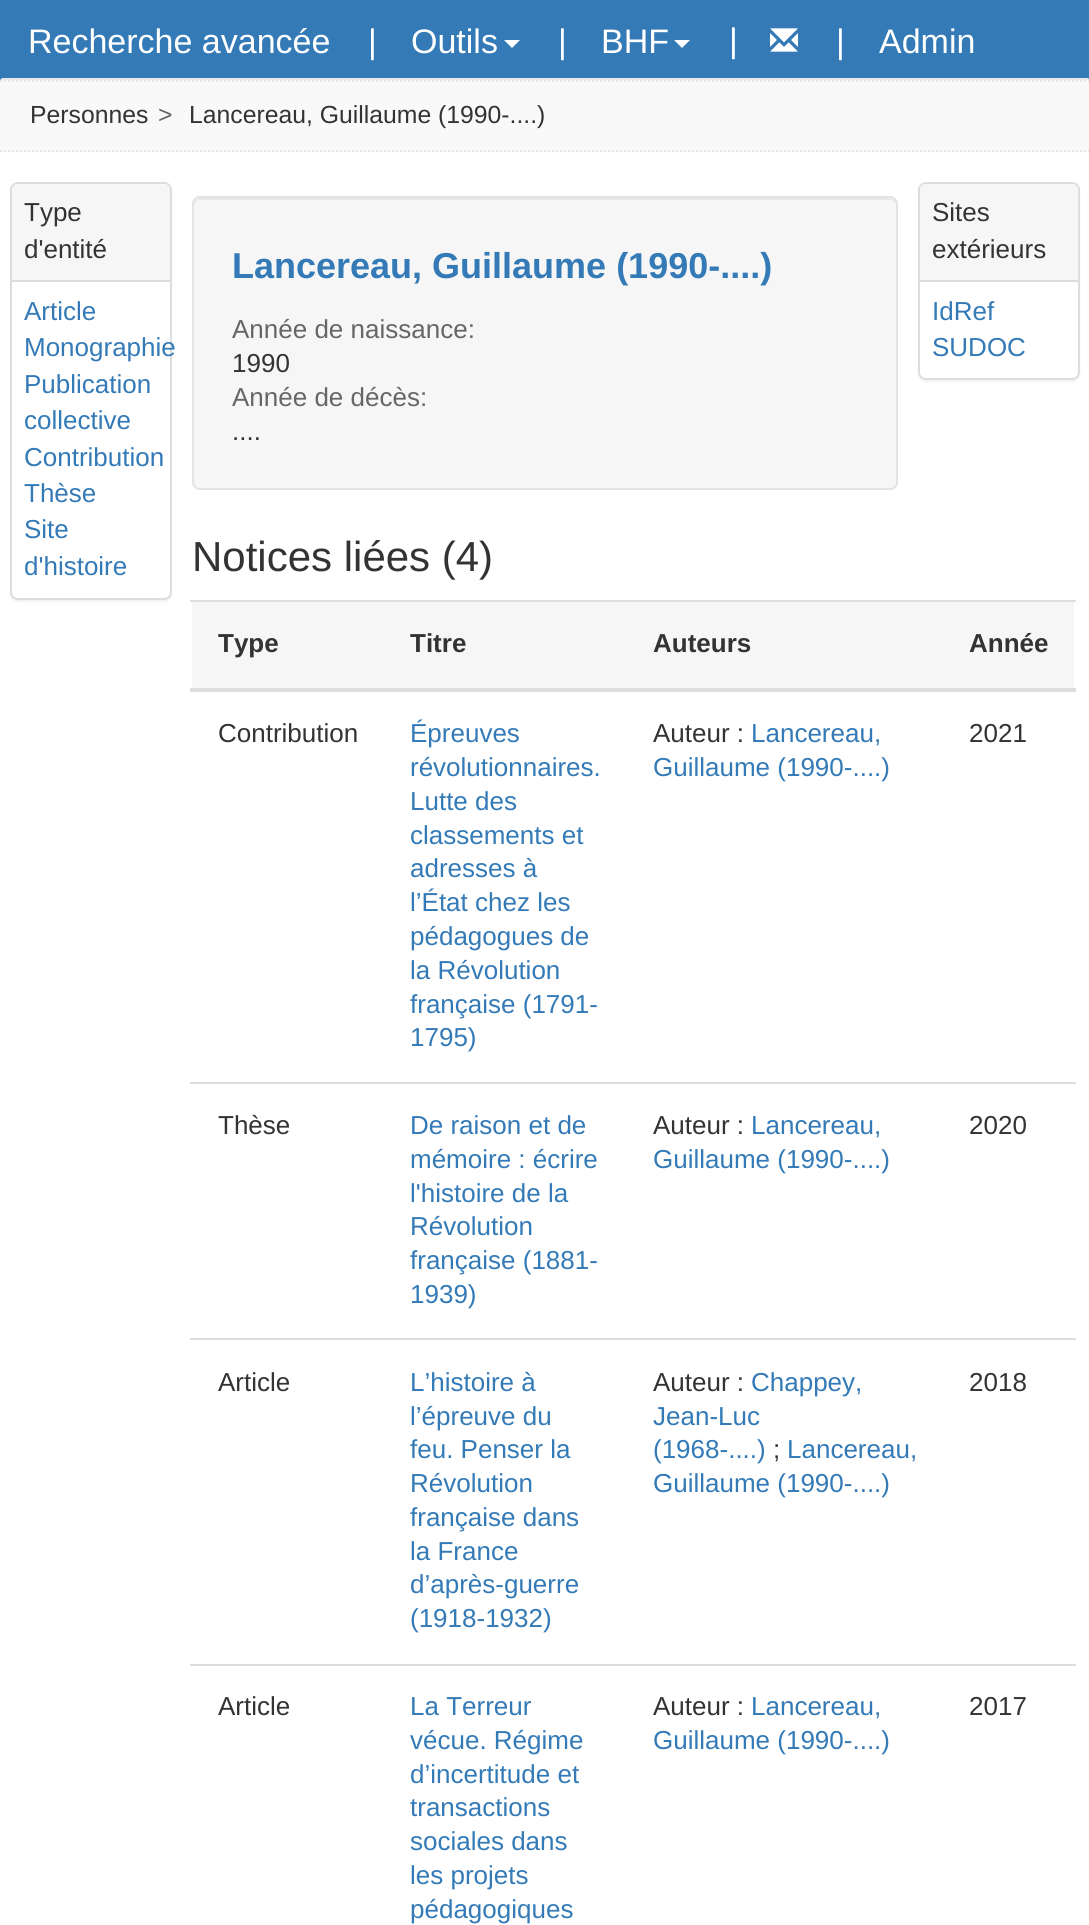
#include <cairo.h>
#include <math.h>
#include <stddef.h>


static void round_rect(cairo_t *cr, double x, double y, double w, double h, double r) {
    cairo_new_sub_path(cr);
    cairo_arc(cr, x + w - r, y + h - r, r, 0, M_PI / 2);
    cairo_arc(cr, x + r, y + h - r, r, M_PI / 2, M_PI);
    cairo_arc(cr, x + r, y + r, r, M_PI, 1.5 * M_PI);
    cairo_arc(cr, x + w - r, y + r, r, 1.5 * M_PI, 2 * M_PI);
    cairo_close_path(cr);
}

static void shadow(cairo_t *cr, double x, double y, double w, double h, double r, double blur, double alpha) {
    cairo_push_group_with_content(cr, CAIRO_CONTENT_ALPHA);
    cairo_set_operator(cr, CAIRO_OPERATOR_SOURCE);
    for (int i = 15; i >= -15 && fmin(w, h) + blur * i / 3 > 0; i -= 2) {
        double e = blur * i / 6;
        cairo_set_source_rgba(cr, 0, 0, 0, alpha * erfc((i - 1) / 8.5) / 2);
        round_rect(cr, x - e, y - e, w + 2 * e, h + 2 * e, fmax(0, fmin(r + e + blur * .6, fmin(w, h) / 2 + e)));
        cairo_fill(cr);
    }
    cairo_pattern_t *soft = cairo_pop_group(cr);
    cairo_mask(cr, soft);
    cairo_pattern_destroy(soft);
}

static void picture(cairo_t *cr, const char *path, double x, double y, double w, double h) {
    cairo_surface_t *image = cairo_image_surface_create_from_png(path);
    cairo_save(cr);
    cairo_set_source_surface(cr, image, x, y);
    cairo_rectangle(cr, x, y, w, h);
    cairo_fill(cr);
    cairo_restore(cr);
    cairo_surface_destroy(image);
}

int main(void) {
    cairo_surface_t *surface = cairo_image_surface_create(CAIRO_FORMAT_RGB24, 1089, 1925);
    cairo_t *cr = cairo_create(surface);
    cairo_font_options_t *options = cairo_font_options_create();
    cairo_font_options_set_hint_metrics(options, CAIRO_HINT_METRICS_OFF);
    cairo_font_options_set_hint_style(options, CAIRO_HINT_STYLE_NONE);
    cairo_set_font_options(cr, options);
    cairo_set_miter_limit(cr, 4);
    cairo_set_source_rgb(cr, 1, 1, 1);
    cairo_paint(cr);
    cairo_set_source_rgb(cr, 0.2, 0.478, 0.718);
    cairo_rectangle(cr, 0, 0, 1089, 80);
    cairo_fill(cr);
    cairo_set_source_rgb(cr, 0.906, 0.906, 0.906);
    cairo_new_path(cr);
    cairo_move_to(cr, 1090, 80);
    cairo_line_to(cr, 0, 80);
    cairo_line_to(cr, 2, 78);
    cairo_line_to(cr, 1088, 78);
    cairo_close_path(cr);
    cairo_fill(cr);
    cairo_select_font_face(cr, "Liberation Sans", CAIRO_FONT_SLANT_NORMAL, CAIRO_FONT_WEIGHT_NORMAL);
    cairo_set_font_size(cr, 34);
    cairo_set_source_rgb(cr, 1, 1, 1);
    cairo_move_to(cr, 28, 53);
    cairo_show_text(cr, "Recherche avancée");
    cairo_move_to(cr, 368, 53);
    cairo_show_text(cr, "|");
    cairo_move_to(cr, 411, 53);
    cairo_show_text(cr, "Outils");
    cairo_new_path(cr);
    cairo_move_to(cr, 504, 40);
    cairo_line_to(cr, 520, 40);
    cairo_line_to(cr, 512, 48);
    cairo_close_path(cr);
    cairo_fill(cr);
    cairo_move_to(cr, 558, 53);
    cairo_show_text(cr, "|");
    cairo_move_to(cr, 601, 53);
    cairo_show_text(cr, "BHF");
    cairo_new_path(cr);
    cairo_move_to(cr, 674, 40);
    cairo_line_to(cr, 690, 40);
    cairo_line_to(cr, 682, 48);
    cairo_close_path(cr);
    cairo_fill(cr);
    cairo_move_to(cr, 729, 52);
    cairo_show_text(cr, "|");
    picture(cr, "img1.png", 770, 28, 28, 24);
    cairo_move_to(cr, 836, 53);
    cairo_show_text(cr, "|");
    cairo_move_to(cr, 879, 53);
    cairo_show_text(cr, "Admin");
    cairo_set_source_rgb(cr, 0.976, 0.976, 0.976);
    cairo_rectangle(cr, 0, 80, 1089, 72);
    cairo_fill(cr);
    cairo_new_path(cr);
    cairo_move_to(cr, 0, 81);
    cairo_line_to(cr, 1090, 81);
    cairo_set_source_rgb(cr, 0.906, 0.906, 0.906);
    cairo_set_dash(cr, (double[]){2, 2}, 2, 0);
    cairo_stroke(cr);
    cairo_new_path(cr);
    cairo_move_to(cr, 0, 151);
    cairo_line_to(cr, 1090, 151);
    cairo_stroke(cr);
    cairo_set_font_size(cr, 24.75);
    cairo_set_source_rgb(cr, 0.2, 0.2, 0.2);
    cairo_move_to(cr, 30, 123);
    cairo_show_text(cr, "Personnes");
    cairo_set_source_rgb(cr, 0.4, 0.4, 0.4);
    cairo_move_to(cr, 158, 123);
    cairo_show_text(cr, ">");
    cairo_set_source_rgb(cr, 0.2, 0.2, 0.2);
    cairo_move_to(cr, 189, 123);
    cairo_show_text(cr, "Lancereau, Guillaume (1990-....)");
    cairo_set_source_rgb(cr, 0, 0, 0);
    shadow(cr, 10, 184, 162, 418, 8, 1, 0.05);
    cairo_set_source_rgb(cr, 1, 1, 1);
    round_rect(cr, 11, 183, 160, 416, 7);
    cairo_fill_preserve(cr);
    cairo_set_source_rgb(cr, 0.867, 0.867, 0.867);
    cairo_set_dash(cr, NULL, 0, 0);
    cairo_stroke(cr);
    cairo_set_source_rgb(cr, 0.961, 0.961, 0.961);
    cairo_new_path(cr);
    cairo_move_to(cr, 18, 184);
    cairo_line_to(cr, 164, 184);
    cairo_curve_to(cr, 167.5, 184, 170, 186.5, 170, 190);
    cairo_line_to(cr, 170, 282);
    cairo_line_to(cr, 12, 282);
    cairo_line_to(cr, 12, 190);
    cairo_curve_to(cr, 12, 186.5, 14.5, 184, 18, 184);
    cairo_close_path(cr);
    cairo_fill(cr);
    cairo_set_source_rgb(cr, 0.867, 0.867, 0.867);
    cairo_rectangle(cr, 12, 280, 158, 2);
    cairo_fill(cr);
    cairo_set_font_size(cr, 26);
    cairo_set_source_rgb(cr, 0.2, 0.2, 0.2);
    cairo_move_to(cr, 24, 221);
    cairo_show_text(cr, "Type");
    cairo_move_to(cr, 24, 258);
    cairo_show_text(cr, "d'entité");
    cairo_set_source_rgb(cr, 0.2, 0.478, 0.718);
    cairo_move_to(cr, 24, 320);
    cairo_show_text(cr, "Article");
    cairo_move_to(cr, 24, 356);
    cairo_show_text(cr, "Monographie");
    cairo_move_to(cr, 24, 393);
    cairo_show_text(cr, "Publication");
    cairo_move_to(cr, 24, 429);
    cairo_show_text(cr, "collective");
    cairo_move_to(cr, 24, 466);
    cairo_show_text(cr, "Contribution");
    cairo_move_to(cr, 24, 502);
    cairo_show_text(cr, "Thèse");
    cairo_move_to(cr, 24, 538);
    cairo_show_text(cr, "Site");
    cairo_move_to(cr, 24, 575);
    cairo_show_text(cr, "d'histoire");
    cairo_set_source_rgb(cr, 0, 0, 0);
    shadow(cr, 918, 184, 162, 198, 8, 1, 0.05);
    cairo_set_source_rgb(cr, 1, 1, 1);
    round_rect(cr, 919, 183, 160, 196, 7);
    cairo_fill_preserve(cr);
    cairo_set_source_rgb(cr, 0.867, 0.867, 0.867);
    cairo_stroke(cr);
    cairo_set_source_rgb(cr, 0.961, 0.961, 0.961);
    cairo_new_path(cr);
    cairo_move_to(cr, 926, 184);
    cairo_line_to(cr, 1072, 184);
    cairo_curve_to(cr, 1075.5, 184, 1078, 186.5, 1078, 190);
    cairo_line_to(cr, 1078, 282);
    cairo_line_to(cr, 920, 282);
    cairo_line_to(cr, 920, 190);
    cairo_curve_to(cr, 920, 186.5, 922.5, 184, 926, 184);
    cairo_close_path(cr);
    cairo_fill(cr);
    cairo_set_source_rgb(cr, 0.867, 0.867, 0.867);
    cairo_rectangle(cr, 920, 280, 158, 2);
    cairo_fill(cr);
    cairo_set_source_rgb(cr, 0.2, 0.2, 0.2);
    cairo_move_to(cr, 932, 221);
    cairo_show_text(cr, "Sites");
    cairo_move_to(cr, 932, 258);
    cairo_show_text(cr, "extérieurs");
    cairo_set_source_rgb(cr, 0.2, 0.478, 0.718);
    cairo_move_to(cr, 932, 320);
    cairo_show_text(cr, "IdRef");
    cairo_move_to(cr, 932, 356);
    cairo_show_text(cr, "SUDOC");
    cairo_set_source_rgb(cr, 0.961, 0.961, 0.961);
    round_rect(cr, 192, 196, 706, 294, 8);
    cairo_fill(cr);
    cairo_set_source_rgb(cr, 0.914, 0.914, 0.914);
    cairo_new_path(cr);
    cairo_move_to(cr, 200, 200);
    cairo_line_to(cr, 890, 200);
    cairo_curve_to(cr, 893, 200, 896, 203, 896, 206);
    cairo_line_to(cr, 896, 204);
    cairo_curve_to(cr, 896, 201, 893, 198, 890, 198);
    cairo_line_to(cr, 200, 198);
    cairo_curve_to(cr, 197, 198, 194, 201, 194, 204);
    cairo_line_to(cr, 194, 206);
    cairo_curve_to(cr, 194, 203, 197, 200, 200, 200);
    cairo_close_path(cr);
    cairo_fill(cr);
    round_rect(cr, 193, 197, 704, 292, 7);
    cairo_set_source_rgb(cr, 0.89, 0.89, 0.89);
    cairo_stroke(cr);
    cairo_select_font_face(cr, "Liberation Sans", CAIRO_FONT_SLANT_NORMAL, CAIRO_FONT_WEIGHT_BOLD);
    cairo_set_font_size(cr, 36);
    cairo_set_source_rgb(cr, 0.2, 0.478, 0.718);
    cairo_move_to(cr, 232, 278);
    cairo_show_text(cr, "Lancereau, Guillaume (1990-....)");
    cairo_select_font_face(cr, "Liberation Sans", CAIRO_FONT_SLANT_NORMAL, CAIRO_FONT_WEIGHT_NORMAL);
    cairo_set_font_size(cr, 26);
    cairo_set_source_rgb(cr, 0.4, 0.4, 0.4);
    cairo_move_to(cr, 232, 338);
    cairo_show_text(cr, "Année de naissance:");
    cairo_set_source_rgb(cr, 0.2, 0.2, 0.2);
    cairo_move_to(cr, 232, 372);
    cairo_show_text(cr, "1990");
    cairo_set_source_rgb(cr, 0.4, 0.4, 0.4);
    cairo_move_to(cr, 232, 406);
    cairo_show_text(cr, "Année de décès:");
    cairo_set_source_rgb(cr, 0.2, 0.2, 0.2);
    cairo_move_to(cr, 232, 440);
    cairo_show_text(cr, "....");
    cairo_set_font_size(cr, 42);
    cairo_move_to(cr, 192, 571);
    cairo_show_text(cr, "Notices liées (4)");
    cairo_set_source_rgb(cr, 0.961, 0.961, 0.961);
    cairo_rectangle(cr, 192, 602, 882, 86);
    cairo_fill(cr);
    cairo_select_font_face(cr, "Liberation Sans", CAIRO_FONT_SLANT_NORMAL, CAIRO_FONT_WEIGHT_BOLD);
    cairo_set_font_size(cr, 26);
    cairo_set_source_rgb(cr, 0.2, 0.2, 0.2);
    cairo_move_to(cr, 218, 652);
    cairo_show_text(cr, "Type");
    cairo_move_to(cr, 410, 652);
    cairo_show_text(cr, "Titre");
    cairo_move_to(cr, 653, 652);
    cairo_show_text(cr, "Auteurs");
    cairo_set_source_rgb(cr, 0.867, 0.867, 0.867);
    cairo_rectangle(cr, 190, 600, 886, 2);
    cairo_fill(cr);
    cairo_set_source_rgb(cr, 0.2, 0.2, 0.2);
    cairo_move_to(cr, 969, 652);
    cairo_show_text(cr, "Année");
    cairo_set_source_rgb(cr, 0.867, 0.867, 0.867);
    cairo_rectangle(cr, 190, 688, 886, 4);
    cairo_fill(cr);
    cairo_select_font_face(cr, "Liberation Sans", CAIRO_FONT_SLANT_NORMAL, CAIRO_FONT_WEIGHT_NORMAL);
    cairo_set_source_rgb(cr, 0.2, 0.2, 0.2);
    cairo_move_to(cr, 218, 742);
    cairo_show_text(cr, "Contribution");
    cairo_set_source_rgb(cr, 0.2, 0.478, 0.718);
    cairo_move_to(cr, 410, 742);
    cairo_show_text(cr, "Épreuves");
    cairo_move_to(cr, 410, 776);
    cairo_show_text(cr, "révolutionnaires.");
    cairo_move_to(cr, 410, 810);
    cairo_show_text(cr, "Lutte des");
    cairo_move_to(cr, 410, 844);
    cairo_show_text(cr, "classements et");
    cairo_move_to(cr, 410, 877);
    cairo_show_text(cr, "adresses à");
    cairo_move_to(cr, 410, 911);
    cairo_show_text(cr, "l’État chez les");
    cairo_move_to(cr, 410, 945);
    cairo_show_text(cr, "pédagogues de");
    cairo_move_to(cr, 410, 979);
    cairo_show_text(cr, "la Révolution");
    cairo_move_to(cr, 410, 1013);
    cairo_show_text(cr, "française (1791-");
    cairo_move_to(cr, 410, 1046);
    cairo_show_text(cr, "1795)");
    cairo_set_source_rgb(cr, 0.2, 0.2, 0.2);
    cairo_move_to(cr, 653, 742);
    cairo_show_text(cr, "Auteur :");
    cairo_set_source_rgb(cr, 0.2, 0.478, 0.718);
    cairo_move_to(cr, 751, 742);
    cairo_show_text(cr, "Lancereau,");
    cairo_move_to(cr, 653, 776);
    cairo_show_text(cr, "Guillaume (1990-....)");
    cairo_set_source_rgb(cr, 0.2, 0.2, 0.2);
    cairo_move_to(cr, 969, 742);
    cairo_show_text(cr, "2021");
    cairo_move_to(cr, 218, 1134);
    cairo_show_text(cr, "Thèse");
    cairo_set_source_rgb(cr, 0.2, 0.478, 0.718);
    cairo_move_to(cr, 410, 1134);
    cairo_show_text(cr, "De raison et de");
    cairo_move_to(cr, 410, 1168);
    cairo_show_text(cr, "mémoire : écrire");
    cairo_move_to(cr, 410, 1202);
    cairo_show_text(cr, "l'histoire de la");
    cairo_move_to(cr, 410, 1235);
    cairo_show_text(cr, "Révolution");
    cairo_move_to(cr, 410, 1269);
    cairo_show_text(cr, "française (1881-");
    cairo_move_to(cr, 410, 1303);
    cairo_show_text(cr, "1939)");
    cairo_set_source_rgb(cr, 0.2, 0.2, 0.2);
    cairo_move_to(cr, 653, 1134);
    cairo_show_text(cr, "Auteur :");
    cairo_set_source_rgb(cr, 0.2, 0.478, 0.718);
    cairo_move_to(cr, 751, 1134);
    cairo_show_text(cr, "Lancereau,");
    cairo_move_to(cr, 653, 1168);
    cairo_show_text(cr, "Guillaume (1990-....)");
    cairo_set_source_rgb(cr, 0.867, 0.867, 0.867);
    cairo_rectangle(cr, 190, 1082, 886, 2);
    cairo_fill(cr);
    cairo_set_source_rgb(cr, 0.2, 0.2, 0.2);
    cairo_move_to(cr, 969, 1134);
    cairo_show_text(cr, "2020");
    cairo_move_to(cr, 218, 1391);
    cairo_show_text(cr, "Article");
    cairo_set_source_rgb(cr, 0.2, 0.478, 0.718);
    cairo_move_to(cr, 410, 1391);
    cairo_show_text(cr, "L’histoire à");
    cairo_move_to(cr, 410, 1425);
    cairo_show_text(cr, "l’épreuve du");
    cairo_move_to(cr, 410, 1458);
    cairo_show_text(cr, "feu. Penser la");
    cairo_move_to(cr, 410, 1492);
    cairo_show_text(cr, "Révolution");
    cairo_move_to(cr, 410, 1526);
    cairo_show_text(cr, "française dans");
    cairo_move_to(cr, 410, 1560);
    cairo_show_text(cr, "la France");
    cairo_move_to(cr, 410, 1593);
    cairo_show_text(cr, "d’après-guerre");
    cairo_move_to(cr, 410, 1627);
    cairo_show_text(cr, "(1918-1932)");
    cairo_set_source_rgb(cr, 0.2, 0.2, 0.2);
    cairo_move_to(cr, 653, 1391);
    cairo_show_text(cr, "Auteur :");
    cairo_set_source_rgb(cr, 0.2, 0.478, 0.718);
    cairo_move_to(cr, 751, 1391);
    cairo_show_text(cr, "Chappey,");
    cairo_move_to(cr, 653, 1425);
    cairo_show_text(cr, "Jean-Luc");
    cairo_move_to(cr, 653, 1458);
    cairo_show_text(cr, "(1968-....)");
    cairo_set_source_rgb(cr, 0.2, 0.2, 0.2);
    cairo_move_to(cr, 773, 1458);
    cairo_show_text(cr, ";");
    cairo_set_source_rgb(cr, 0.2, 0.478, 0.718);
    cairo_move_to(cr, 787, 1458);
    cairo_show_text(cr, "Lancereau,");
    cairo_move_to(cr, 653, 1492);
    cairo_show_text(cr, "Guillaume (1990-....)");
    cairo_set_source_rgb(cr, 0.867, 0.867, 0.867);
    cairo_rectangle(cr, 190, 1338, 886, 2);
    cairo_fill(cr);
    cairo_set_source_rgb(cr, 0.2, 0.2, 0.2);
    cairo_move_to(cr, 969, 1391);
    cairo_show_text(cr, "2018");
    cairo_move_to(cr, 218, 1715);
    cairo_show_text(cr, "Article");
    cairo_set_source_rgb(cr, 0.2, 0.478, 0.718);
    cairo_move_to(cr, 410, 1715);
    cairo_show_text(cr, "La Terreur");
    cairo_move_to(cr, 410, 1749);
    cairo_show_text(cr, "vécue. Régime");
    cairo_move_to(cr, 410, 1783);
    cairo_show_text(cr, "d’incertitude et");
    cairo_move_to(cr, 410, 1816);
    cairo_show_text(cr, "transactions");
    cairo_move_to(cr, 410, 1850);
    cairo_show_text(cr, "sociales dans");
    cairo_move_to(cr, 410, 1884);
    cairo_show_text(cr, "les projets");
    cairo_move_to(cr, 410, 1918);
    cairo_show_text(cr, "pédagogiques");
    cairo_set_source_rgb(cr, 0.2, 0.2, 0.2);
    cairo_move_to(cr, 653, 1715);
    cairo_show_text(cr, "Auteur :");
    cairo_set_source_rgb(cr, 0.2, 0.478, 0.718);
    cairo_move_to(cr, 751, 1715);
    cairo_show_text(cr, "Lancereau,");
    cairo_move_to(cr, 653, 1749);
    cairo_show_text(cr, "Guillaume (1990-....)");
    cairo_set_source_rgb(cr, 0.867, 0.867, 0.867);
    cairo_rectangle(cr, 190, 1664, 886, 2);
    cairo_fill(cr);
    cairo_set_source_rgb(cr, 0.2, 0.2, 0.2);
    cairo_move_to(cr, 969, 1715);
    cairo_show_text(cr, "2017");
    cairo_surface_write_to_png(surface, "page.png");
    cairo_font_options_destroy(options);
    cairo_destroy(cr);
    cairo_surface_destroy(surface);
    return 0;
}
